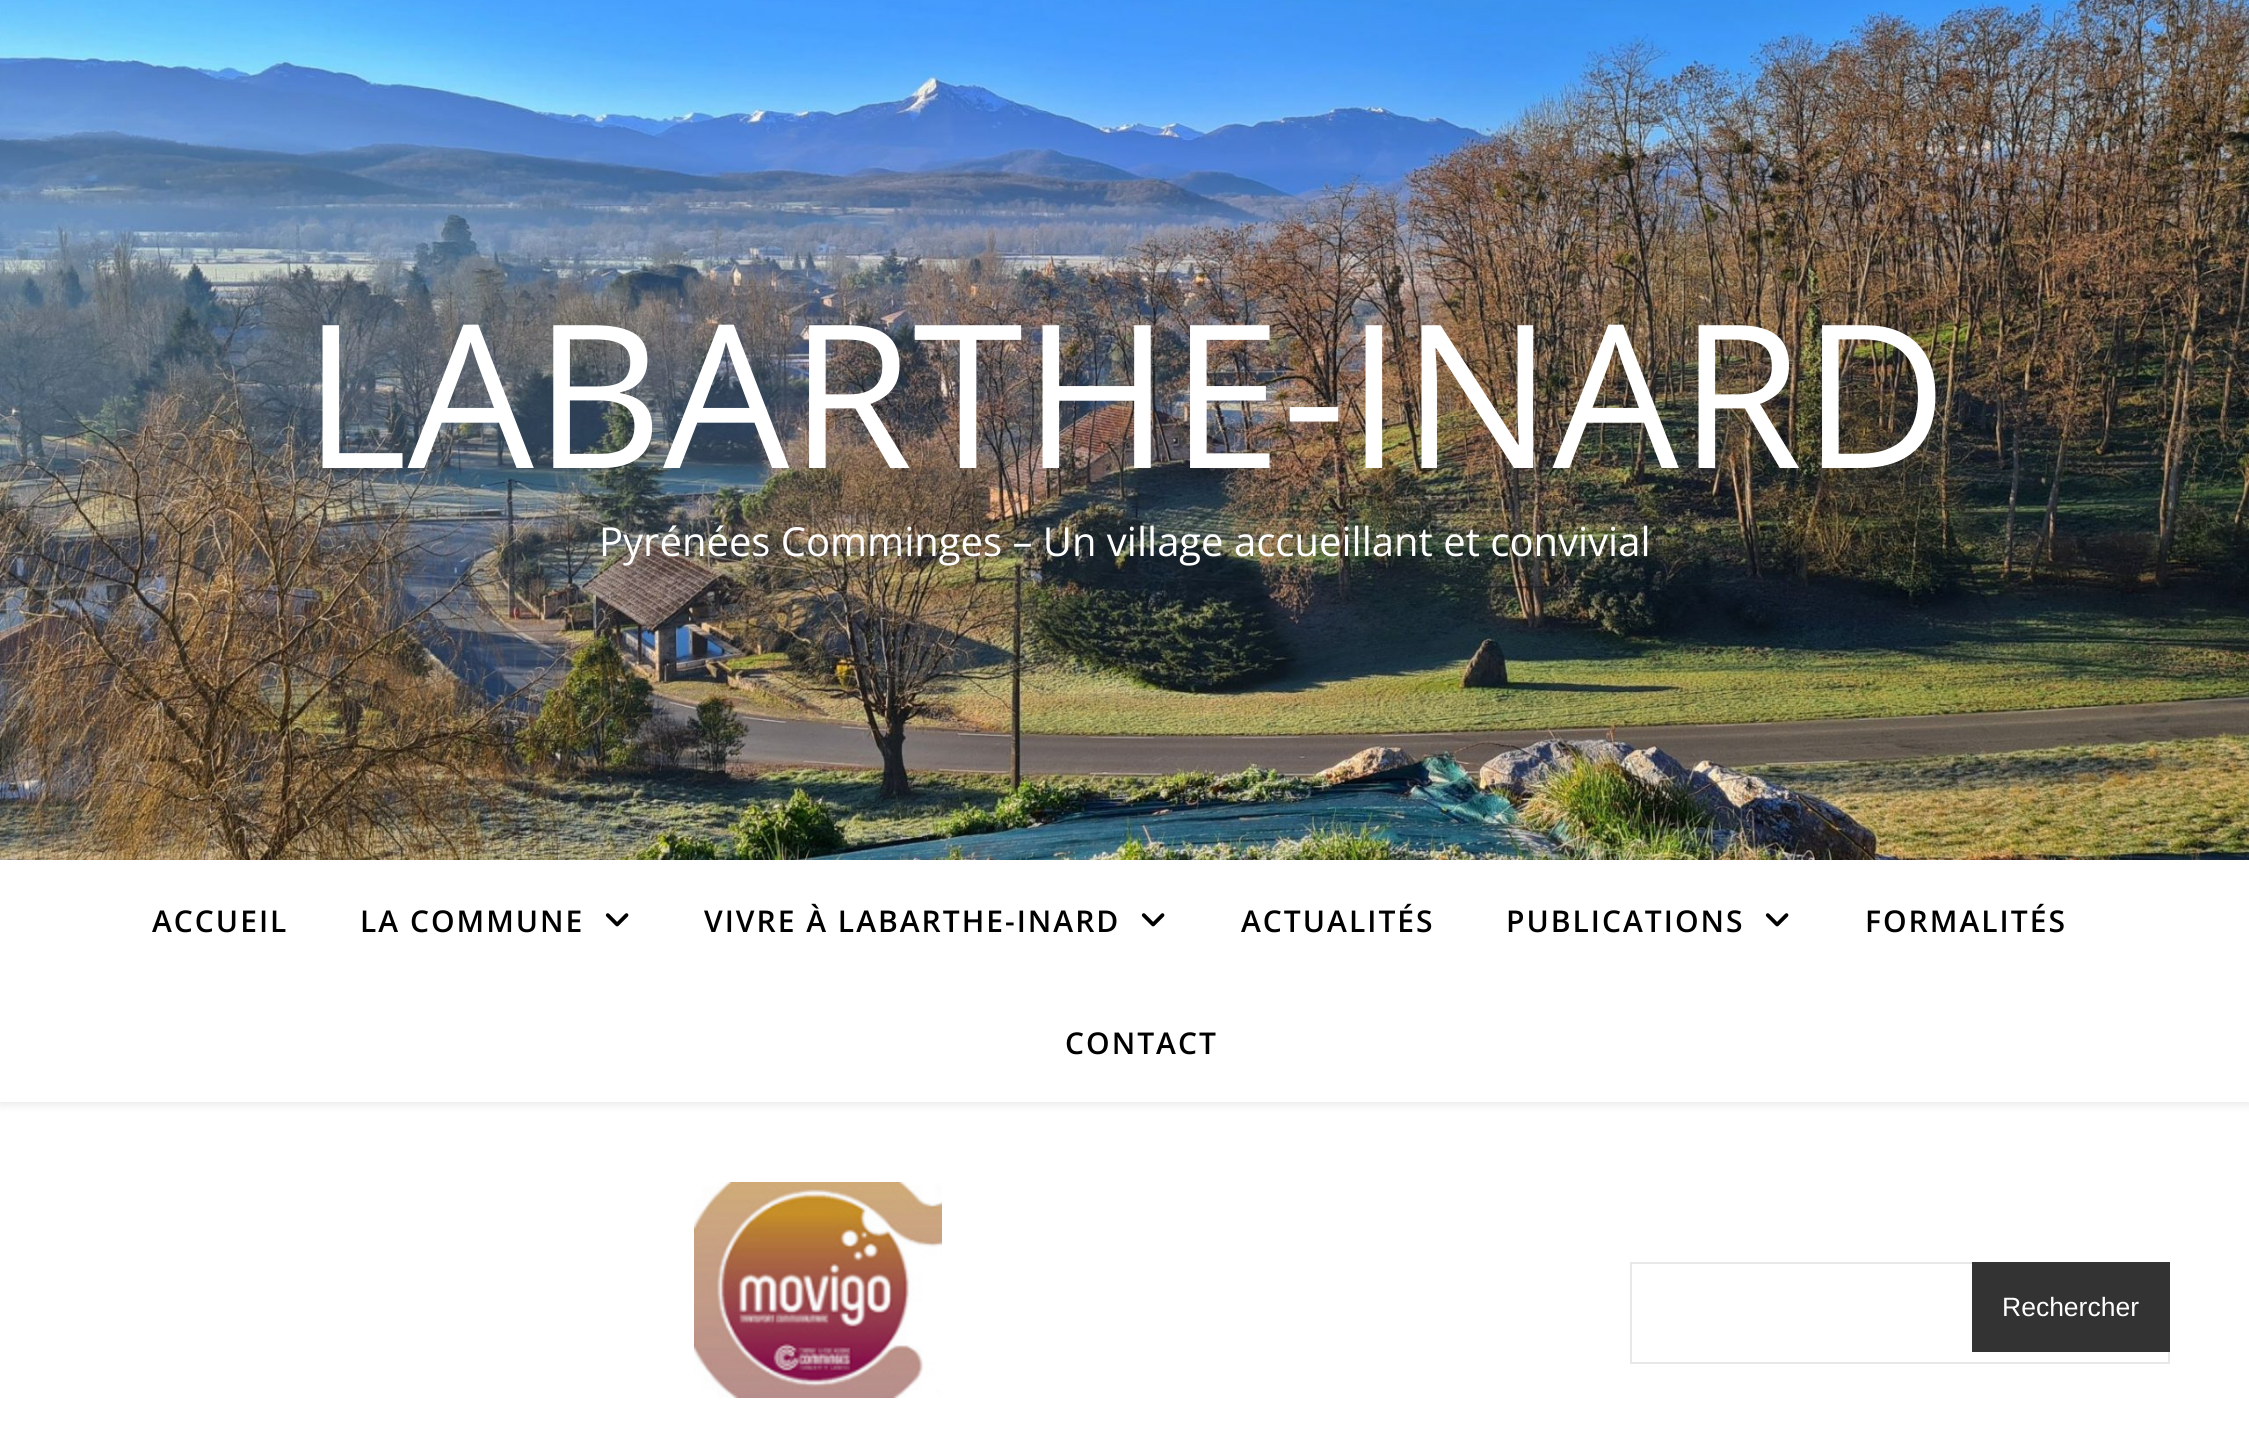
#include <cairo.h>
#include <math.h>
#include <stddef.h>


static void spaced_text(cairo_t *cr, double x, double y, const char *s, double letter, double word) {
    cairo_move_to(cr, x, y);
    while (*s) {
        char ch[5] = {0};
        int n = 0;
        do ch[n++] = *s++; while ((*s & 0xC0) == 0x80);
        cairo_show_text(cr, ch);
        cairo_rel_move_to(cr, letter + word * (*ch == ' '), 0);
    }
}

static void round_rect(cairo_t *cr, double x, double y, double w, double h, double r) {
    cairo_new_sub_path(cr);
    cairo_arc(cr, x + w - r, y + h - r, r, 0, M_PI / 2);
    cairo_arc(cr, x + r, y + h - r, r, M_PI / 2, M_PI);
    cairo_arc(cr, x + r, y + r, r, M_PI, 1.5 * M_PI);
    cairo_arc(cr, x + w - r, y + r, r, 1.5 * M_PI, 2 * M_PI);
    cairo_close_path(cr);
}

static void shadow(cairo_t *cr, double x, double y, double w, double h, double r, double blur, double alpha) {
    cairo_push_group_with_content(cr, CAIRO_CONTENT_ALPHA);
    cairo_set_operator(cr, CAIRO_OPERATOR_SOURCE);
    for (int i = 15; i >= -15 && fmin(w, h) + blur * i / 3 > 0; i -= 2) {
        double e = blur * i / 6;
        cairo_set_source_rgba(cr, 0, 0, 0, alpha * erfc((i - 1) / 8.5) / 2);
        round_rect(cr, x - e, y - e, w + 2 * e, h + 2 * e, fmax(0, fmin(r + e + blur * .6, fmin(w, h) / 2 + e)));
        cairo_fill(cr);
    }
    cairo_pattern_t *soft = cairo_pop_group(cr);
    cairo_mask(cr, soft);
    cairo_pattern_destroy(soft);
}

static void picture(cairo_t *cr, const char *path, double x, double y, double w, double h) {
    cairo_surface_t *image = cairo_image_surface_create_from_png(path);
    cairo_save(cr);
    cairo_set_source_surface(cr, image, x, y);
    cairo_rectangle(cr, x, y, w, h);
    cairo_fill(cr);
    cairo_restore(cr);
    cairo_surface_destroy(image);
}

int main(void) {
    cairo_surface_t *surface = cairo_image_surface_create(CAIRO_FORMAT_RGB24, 2249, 1437);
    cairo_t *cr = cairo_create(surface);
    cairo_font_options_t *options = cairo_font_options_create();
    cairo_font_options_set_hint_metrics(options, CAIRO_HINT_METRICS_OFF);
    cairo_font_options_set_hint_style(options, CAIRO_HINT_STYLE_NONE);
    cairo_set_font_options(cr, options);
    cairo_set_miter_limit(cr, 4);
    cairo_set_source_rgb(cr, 1, 1, 1);
    cairo_paint(cr);
    picture(cr, "img1.png", 0, 0, 2249, 860);
    cairo_select_font_face(cr, "Open Sans", CAIRO_FONT_SLANT_NORMAL, CAIRO_FONT_WEIGHT_NORMAL);
    cairo_set_font_size(cr, 200);
    cairo_set_source_rgb(cr, 1, 1, 1);
    cairo_move_to(cr, 303, 468);
    cairo_show_text(cr, "LABARTHE-INARD");
    cairo_set_font_size(cr, 40);
    cairo_move_to(cr, 599, 556);
    cairo_show_text(cr, "Pyrénées Comminges – Un village accueillant et convivial");
    cairo_set_source_rgb(cr, 0, 0, 0);
    shadow(cr, 0, 862, 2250, 242, 0, 5, 0.1);
    cairo_set_source_rgb(cr, 1, 1, 1);
    cairo_rectangle(cr, 0, 860, 2249, 242);
    cairo_fill(cr);
    cairo_select_font_face(cr, "Open Sans SemiBold", CAIRO_FONT_SLANT_NORMAL, CAIRO_FONT_WEIGHT_NORMAL);
    cairo_set_font_size(cr, 30);
    cairo_set_source_rgb(cr, 0, 0, 0);
    spaced_text(cr, 152, 932, "ACCUEIL", 2, 0);
    spaced_text(cr, 360, 932, "LA COMMUNE", 2, 0);
    picture(cr, "img2.png", 605, 913, 24, 14);
    spaced_text(cr, 704, 932, "VIVRE À LABARTHE-INARD", 2, 0);
    picture(cr, "img2.png", 1141, 913, 24, 14);
    spaced_text(cr, 1241, 932, "ACTUALITÉS", 2, 0);
    spaced_text(cr, 1506, 932, "PUBLICATIONS", 2, 0);
    picture(cr, "img2.png", 1765, 913, 24, 14);
    spaced_text(cr, 1865, 932, "FORMALITÉS", 2, 0);
    spaced_text(cr, 1065, 1054, "CONTACT", 2, 0);
    picture(cr, "img3.png", 694, 1182, 248, 216);
    cairo_rectangle(cr, 1631, 1263, 538, 100);
    cairo_set_source_rgb(cr, 0.91, 0.91, 0.91);
    cairo_stroke(cr);
    cairo_set_source_rgb(cr, 0.2, 0.2, 0.2);
    cairo_rectangle(cr, 1972, 1262, 198, 90);
    cairo_fill(cr);
    cairo_select_font_face(cr, "Liberation Sans", CAIRO_FONT_SLANT_NORMAL, CAIRO_FONT_WEIGHT_NORMAL);
    cairo_set_font_size(cr, 26.5);
    cairo_set_source_rgb(cr, 1, 1, 1);
    cairo_move_to(cr, 2002, 1316);
    cairo_show_text(cr, "Rechercher");
    cairo_surface_write_to_png(surface, "page.png");
    cairo_font_options_destroy(options);
    cairo_destroy(cr);
    cairo_surface_destroy(surface);
    return 0;
}
